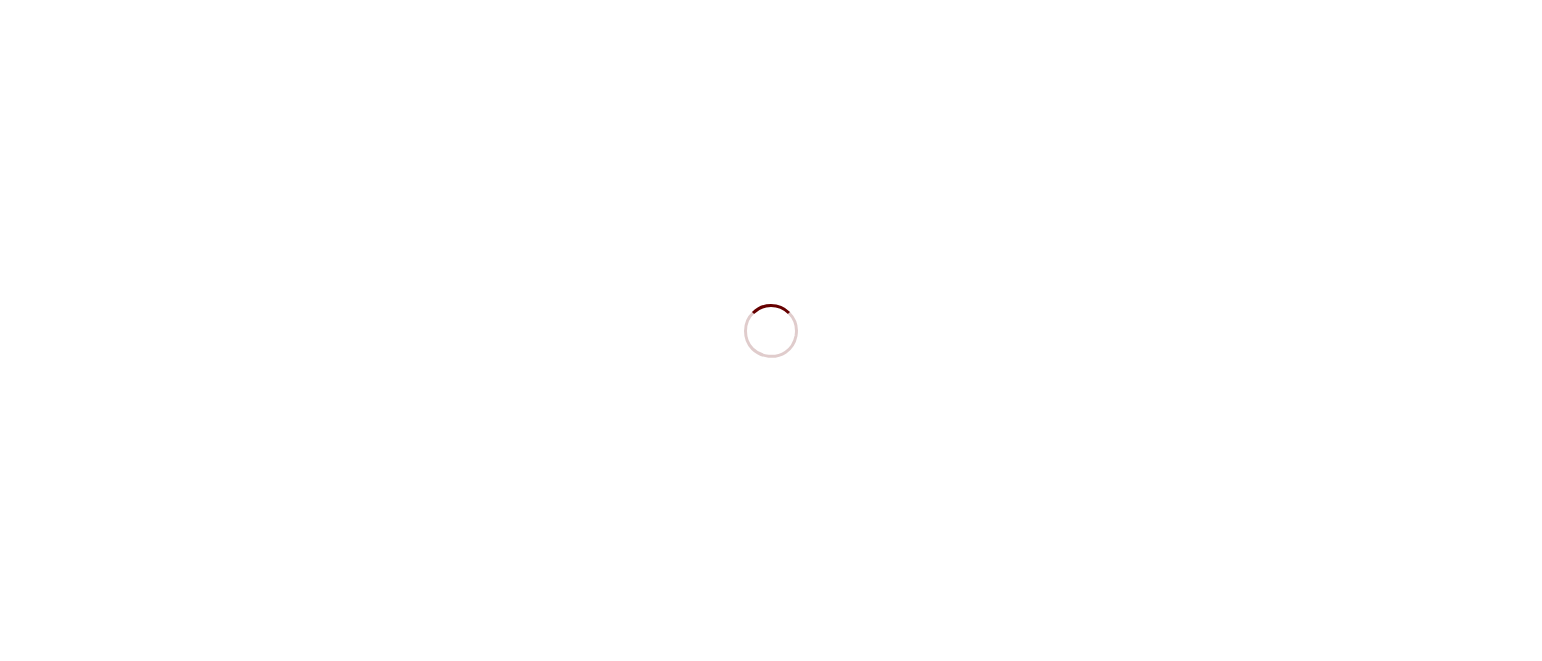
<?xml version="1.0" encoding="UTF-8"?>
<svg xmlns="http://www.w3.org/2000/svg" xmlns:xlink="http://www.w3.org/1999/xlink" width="1542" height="661">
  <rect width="100%" height="100%" fill="#ffffff" />
  <path d="M 753 313 c 10 -10 26 -10 36 0" fill="none" stroke="#660000" stroke-width="3" />
  <path d="M 789 313 c 6 6 8.5 14.5 7 23 c -6 30 -50.5 25.5 -50.5 -5 c 0 -6.5 2.5 -13.5 7.5 -18" fill="none" stroke="#660000" stroke-opacity="0.2" stroke-width="3" />
</svg>
